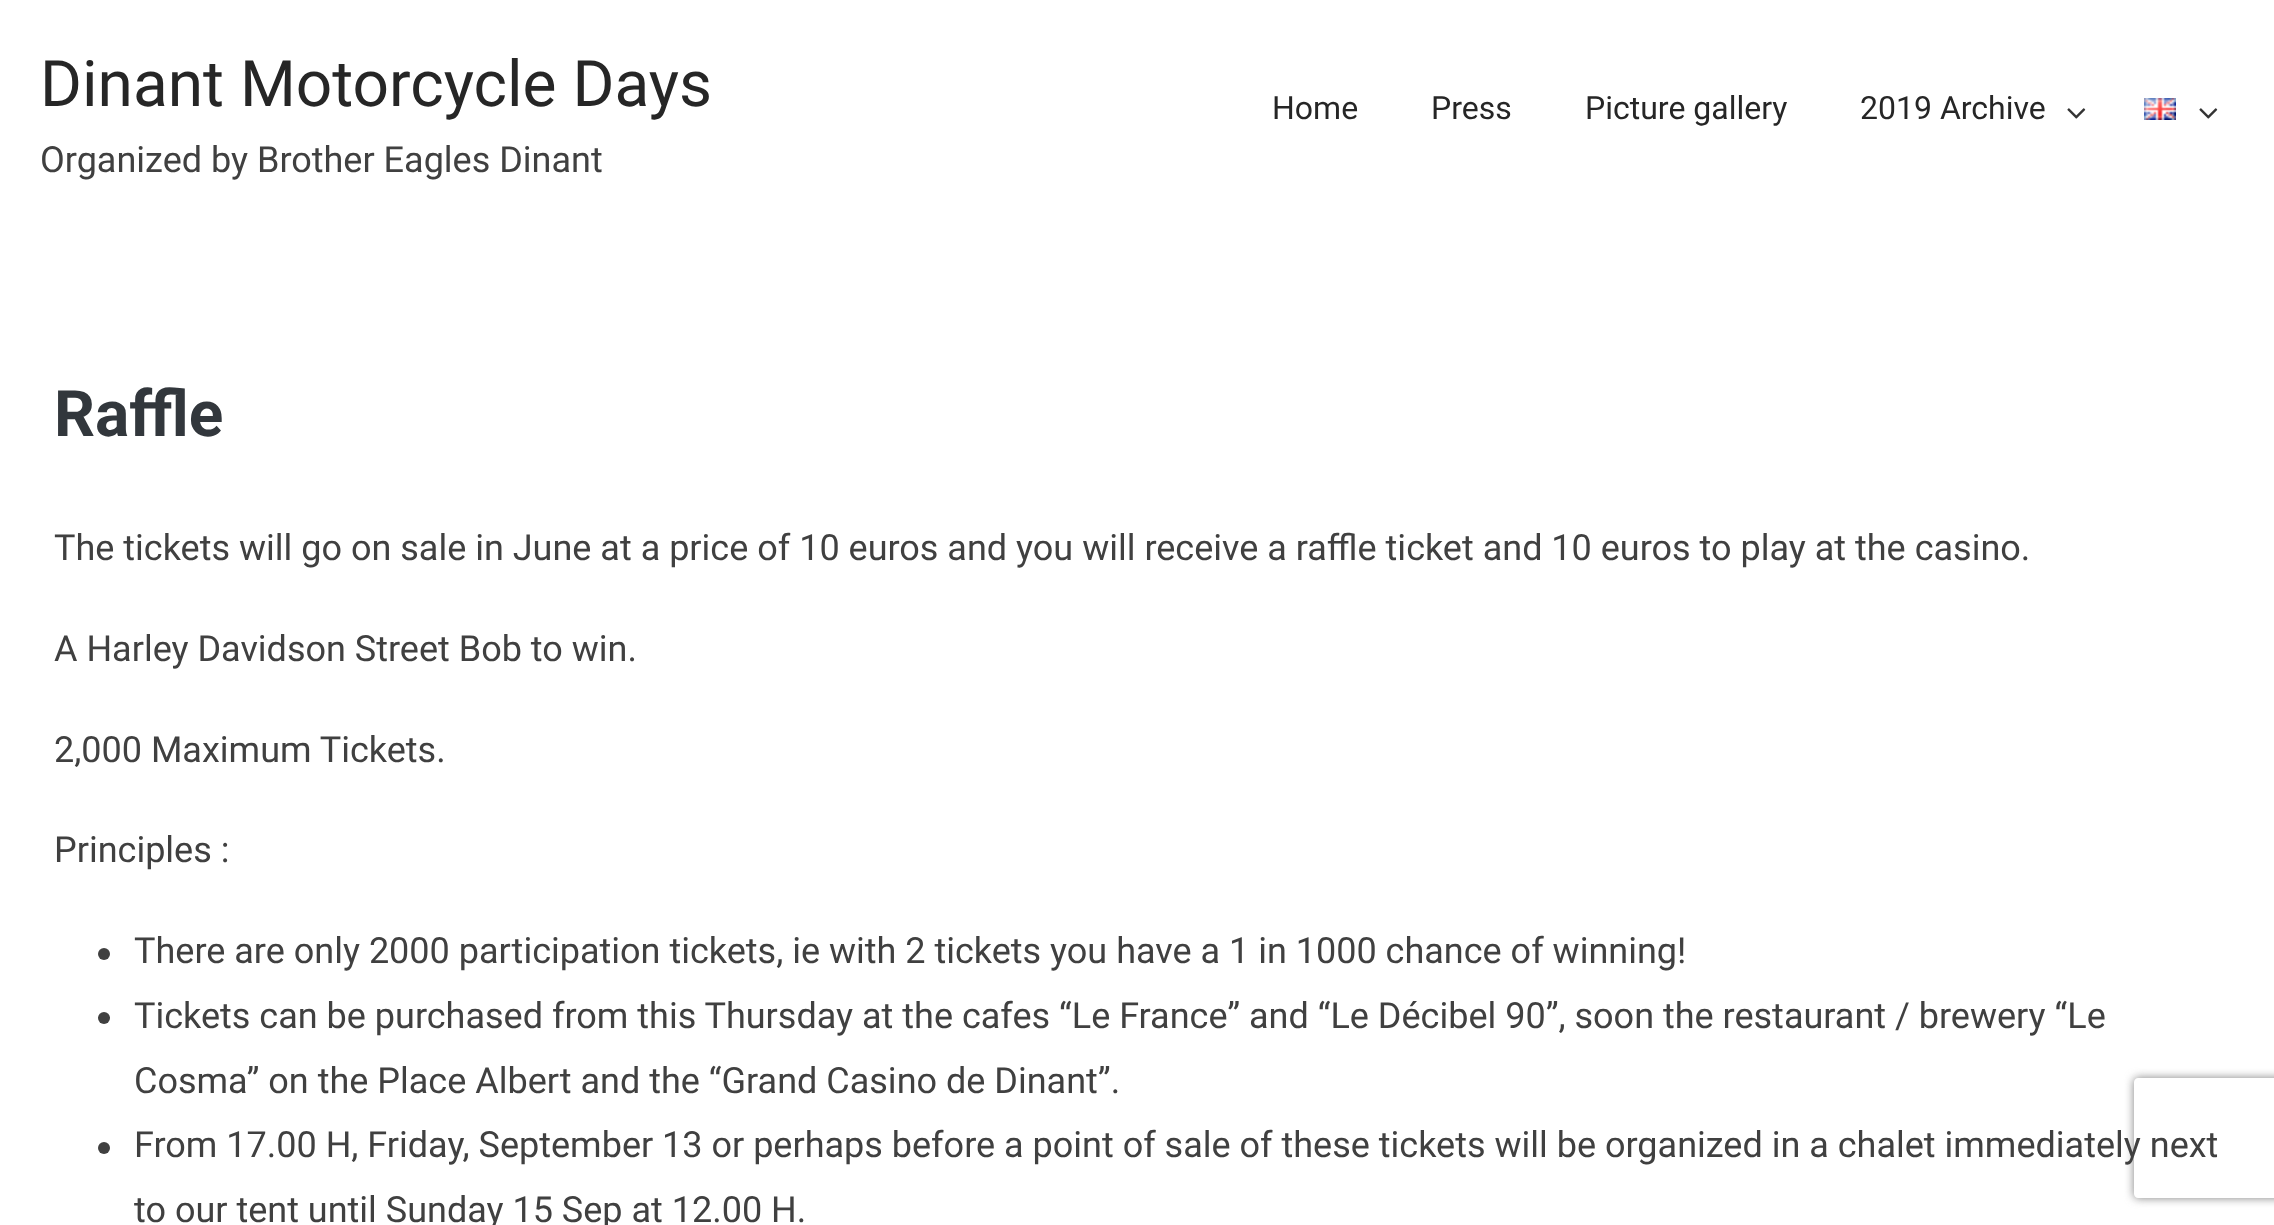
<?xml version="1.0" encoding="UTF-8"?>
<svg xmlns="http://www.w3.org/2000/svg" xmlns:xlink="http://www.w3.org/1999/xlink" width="2274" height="1225">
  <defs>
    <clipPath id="clip1"><path d="M 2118 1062 h 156 v 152 h -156 z m 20 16 h 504 c 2 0 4 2 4 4 v 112 c 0 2 -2 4 -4 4 h -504 c -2 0 -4 -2 -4 -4 v -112 c 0 -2 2 -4 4 -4 z" clip-rule="evenodd" /></clipPath>
  </defs>
  <rect width="100%" height="100%" fill="#ffffff" />
  <image x="2067" y="108" width="19" height="11" xlink:href="image1.png" />
  <image x="2144" y="98" width="32" height="22" xlink:href="image2.png" />
  <image x="2199" y="108" width="19" height="11" xlink:href="image1.png" />
  <circle cx="104" cy="954" r="6" fill="#404040" />
  <circle cx="104" cy="1018" r="6" fill="#404040" />
  <circle cx="104" cy="1148" r="6" fill="#404040" />
  <g clip-path="url(#clip1)">
    <rect x="2134" y="1078" width="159" height="120" rx="4" fill="#808080" filter="blur(5px)" />
  </g>
  <text x="40" y="106" style="font-family: Roboto; font-size: 64px; fill: #262626">Dinant Motorcycle Days</text>
  <text x="40" y="172" style="font-family: Roboto; font-size: 36px; fill: #404040">Organized by Brother Eagles Dinant</text>
  <text x="1272" y="119" style="font-family: Roboto; font-size: 32px; fill: #262626">Home</text>
  <text x="1431" y="119" style="font-family: Roboto; font-size: 32px; fill: #262626">Press</text>
  <text x="1585" y="119" style="font-family: Roboto; font-size: 32px; fill: #262626">Picture gallery</text>
  <text x="1860" y="119" style="font-family: Roboto; font-size: 32px; fill: #262626">2019 Archive</text>
  <text x="54" y="436" style="font-family: Roboto; font-size: 64px; font-weight: bold; fill: #32373c">Raffle</text>
  <text x="54" y="560" style="font-family: Roboto; font-size: 36px; fill: #404040">The tickets will go on sale in June at a price of 10 euros and you will receive a raffle ticket and 10 euros to play at the casino.</text>
  <text x="54" y="661" style="font-family: Roboto; font-size: 36px; fill: #404040">A Harley Davidson Street Bob to win.</text>
  <text x="54" y="762" style="font-family: Roboto; font-size: 36px; fill: #404040">2,000 Maximum Tickets.</text>
  <text x="54" y="862" style="font-family: Roboto; font-size: 36px; fill: #404040">Principles :</text>
  <text x="134" y="963" style="font-family: Roboto; font-size: 36px; fill: #404040">There are only 2000 participation tickets, ie with 2 tickets you have a 1 in 1000 chance of winning!</text>
  <text x="134" y="1028" style="font-family: Roboto; font-size: 36px; fill: #404040">Tickets can be purchased from this Thursday at the cafes “Le France” and “Le Décibel 90”, soon the restaurant / brewery “Le</text>
  <text x="134" y="1093" style="font-family: Roboto; font-size: 36px; fill: #404040">Cosma” on the Place Albert and the “Grand Casino de Dinant”.</text>
  <text x="134" y="1157" style="font-family: Roboto; font-size: 36px; fill: #404040">From 17.00 H, Friday, September 13 or perhaps before a point of sale of these tickets will be organized in a chalet immediately next</text>
  <text x="134" y="1222" style="font-family: Roboto; font-size: 36px; fill: #404040">to our tent until Sunday 15 Sep at 12.00 H.</text>
</svg>
